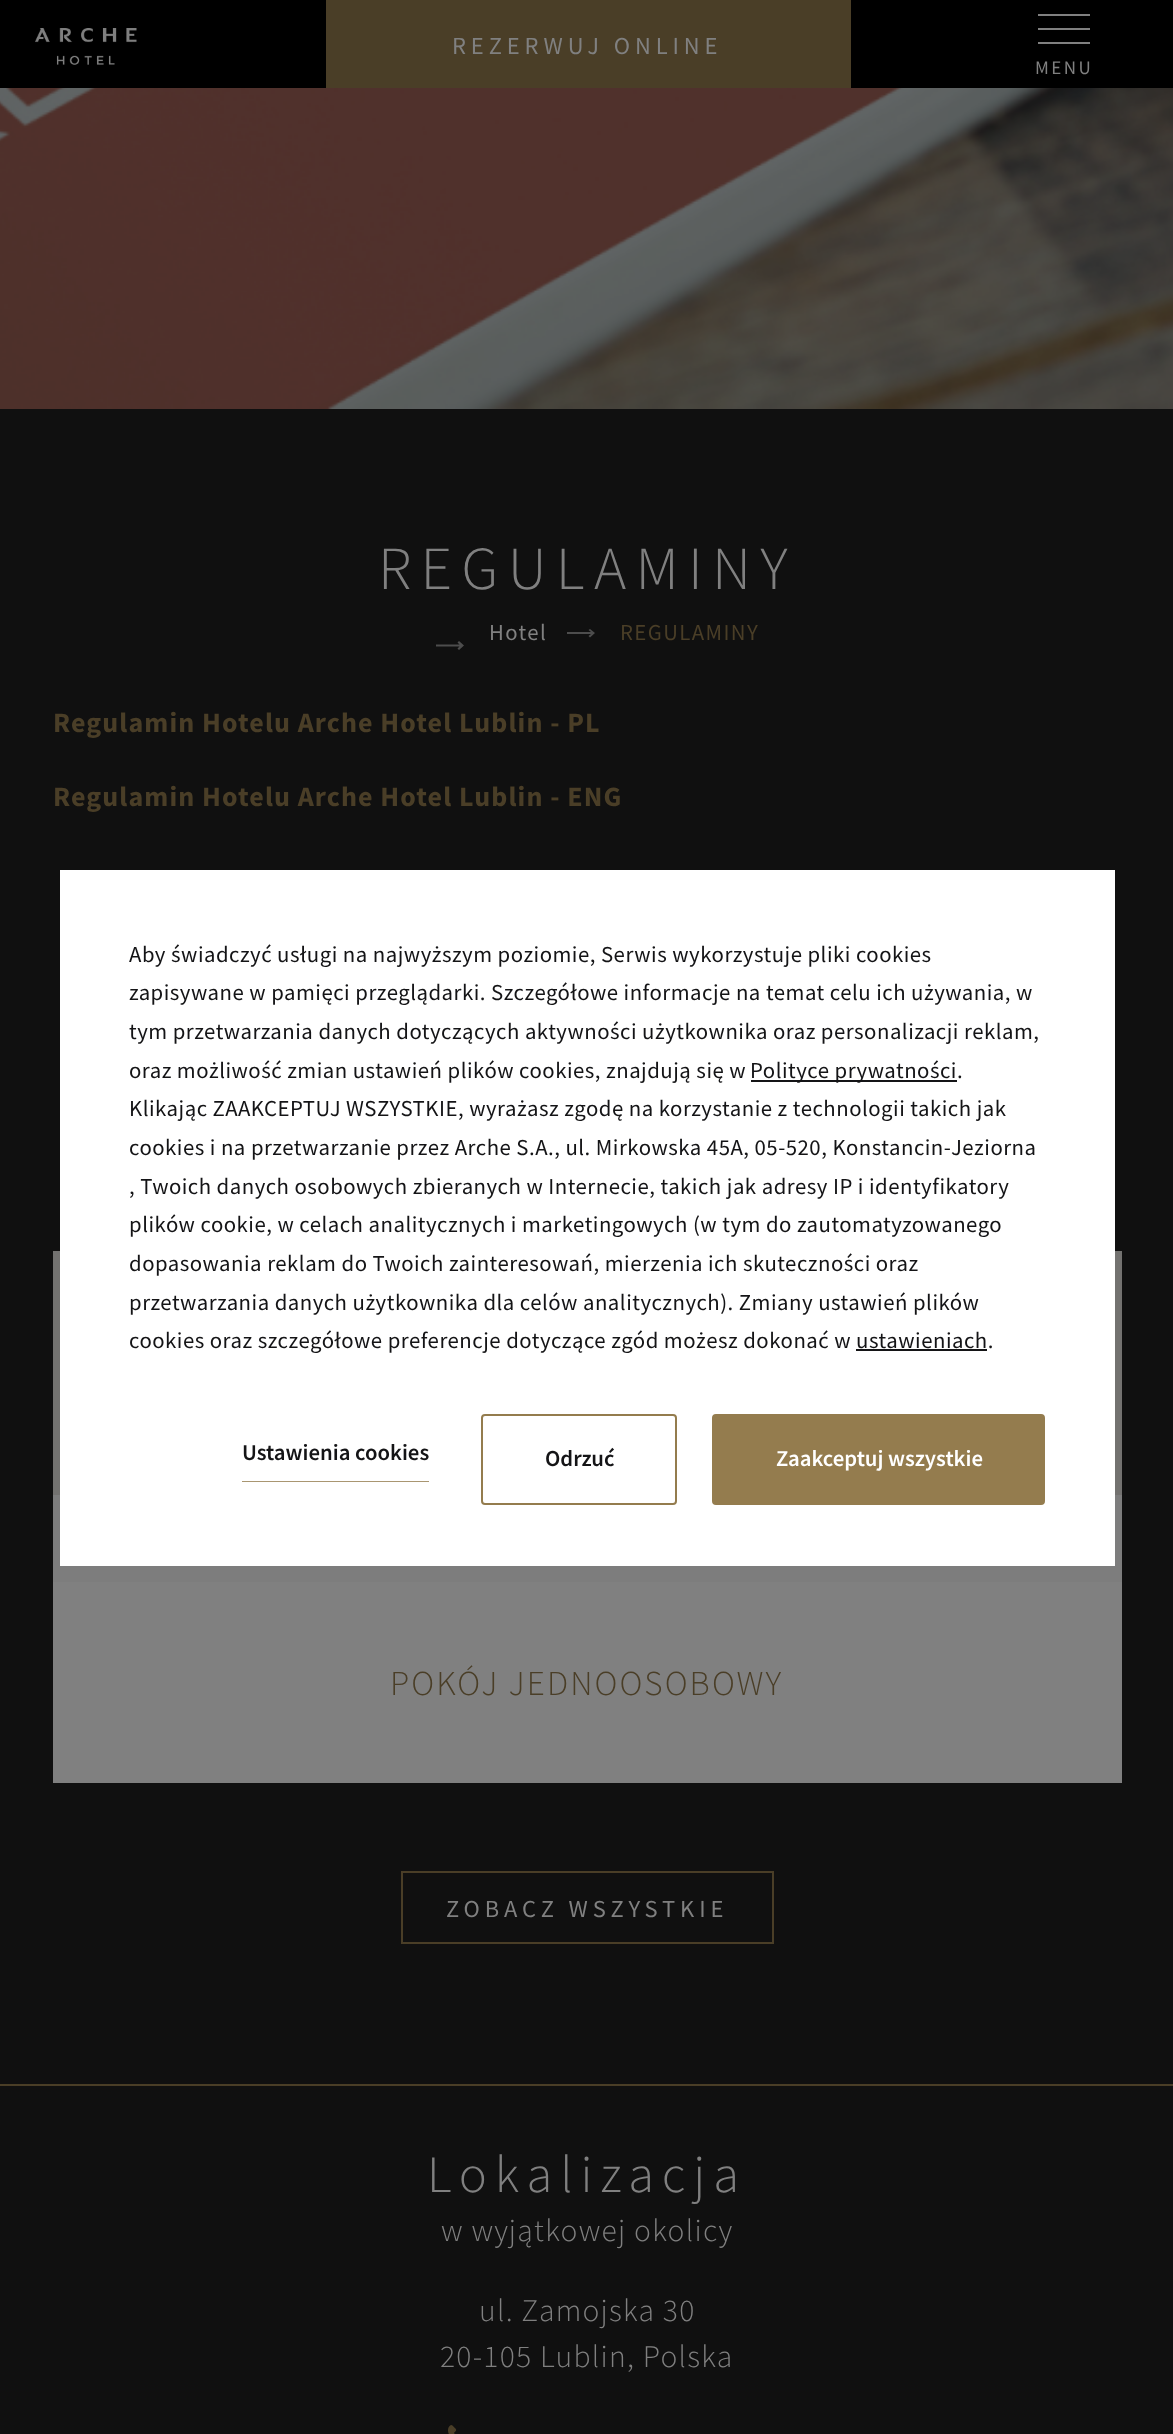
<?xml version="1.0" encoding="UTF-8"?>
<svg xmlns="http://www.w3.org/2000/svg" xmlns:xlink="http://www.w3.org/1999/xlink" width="1173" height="2434">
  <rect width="100%" height="100%" fill="#101010" />
  <rect width="1173" height="88" fill="#000000" />
  <image x="35" y="28" width="102" height="37" xlink:href="image1.png" />
  <rect x="326" width="525" height="88" fill="#4a3e27" />
  <rect x="1038" y="14" width="52" height="2" fill="#808080" />
  <rect x="1038" y="28" width="52" height="2" fill="#808080" />
  <rect x="1038" y="42" width="52" height="2" fill="#808080" />
  <image x="0" y="88" width="1173" height="321" xlink:href="image2.png" />
  <path d="M 590 629 l -1.5 1 l 2.5 2 h -24 v 2 h 24 l -2.5 2 l 1.5 1.5 l 5 -4.5 z" fill="#4d4d4d" />
  <path d="M 459 641 l -1.5 1.5 l 2 2 h -23.5 v 2 h 23.5 l -2 2 l 1.5 1.5 l 5 -4.5 z" fill="#4d4d4d" />
  <rect x="53" y="1251" width="1069" height="244" fill="#737270" />
  <rect x="53" y="1495" width="1069" height="87" fill="#7d7d7d" />
  <rect x="53" y="1582" width="1069" height="201" fill="#808080" />
  <rect x="402" y="1872" width="371" height="71" fill="none" stroke="#4a3e27" stroke-width="2" />
  <rect x="60" y="870" width="1055" height="696" fill="#ffffff" />
  <rect x="751" y="1080" width="206" height="2" fill="#141416" />
  <rect x="856" y="1349" width="131" height="2" fill="#141416" />
  <rect x="242" y="1481" width="187" height="1" fill="#a99671" />
  <rect x="482" y="1415" width="194" height="89" rx="3" fill="none" stroke="#947c4e" stroke-width="2" />
  <rect x="713" y="1415" width="331" height="89" rx="3" fill="none" stroke="#947c4e" stroke-width="2" />
  <rect x="714" y="1416" width="329" height="87" fill="#947c4e" />
  <rect y="2084" width="1173" height="2" fill="#4a3e27" />
  <image x="448" y="2425" width="9" height="9" xlink:href="image3.png" />
  <text x="452" y="54" style="font-family: Source Sans Pro; font-size: 24.5px; letter-spacing: 4.9px; fill: #808080">REZERWUJ ONLINE</text>
  <text x="1035" y="74" style="font-family: Source Sans Pro; font-size: 19px; letter-spacing: 2.5px; fill: #808080">MENU</text>
  <text x="378" y="589" style="font-family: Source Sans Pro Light; font-size: 61.25px; font-weight: 300; letter-spacing: 9.25px; fill: #808080">REGULAMINY</text>
  <text x="489" y="640" style="font-family: Source Sans Pro; font-size: 22.75px; letter-spacing: 1.4px; fill: #808080">Hotel</text>
  <text x="620" y="640" style="font-family: Source Sans Pro; font-size: 22.75px; letter-spacing: 1.4px; fill: #4a3e27">REGULAMINY</text>
  <text x="53" y="732" style="font-family: Source Sans Pro; font-size: 28px; font-weight: bold; letter-spacing: 1.1px; fill: #4a3e27">Regulamin Hotelu Arche Hotel Lublin - PL</text>
  <text x="53" y="806" style="font-family: Source Sans Pro; font-size: 28px; font-weight: bold; letter-spacing: 1.1px; fill: #4a3e27">Regulamin Hotelu Arche Hotel Lublin - ENG</text>
  <text x="390" y="1695" style="font-family: Source Sans Pro Light; font-size: 35px; font-weight: 300; letter-spacing: 2.1px; fill: #4a3e27">POKÓJ JEDNOOSOBOWY</text>
  <text x="446" y="1917" style="font-family: Source Sans Pro; font-size: 24.5px; letter-spacing: 4.9px; fill: #808080">ZOBACZ WSZYSTKIE</text>
  <text x="129" y="962" style="font-family: Source Sans Pro; font-size: 22.75px; letter-spacing: 0.5px; fill: #141416">Aby świadczyć usługi na najwyższym poziomie, Serwis wykorzystuje pliki cookies</text>
  <text x="129" y="1000" style="font-family: Source Sans Pro; font-size: 22.75px; letter-spacing: 0.5px; fill: #141416">zapisywane w pamięci przeglądarki. Szczegółowe informacje na temat celu ich używania, w</text>
  <text x="129" y="1039" style="font-family: Source Sans Pro; font-size: 22.75px; letter-spacing: 0.5px; fill: #141416">tym przetwarzania danych dotyczących aktywności użytkownika oraz personalizacji reklam,</text>
  <text x="129" y="1078" style="font-family: Source Sans Pro; font-size: 22.75px; letter-spacing: 0.5px; fill: #141416">oraz możliwość zmian ustawień plików cookies, znajdują się w</text>
  <text x="750" y="1078" style="font-family: Source Sans Pro; font-size: 22.75px; letter-spacing: 0.5px; fill: #141416">Polityce prywatności.</text>
  <text x="129" y="1116" style="font-family: Source Sans Pro; font-size: 22.75px; letter-spacing: 0.5px; fill: #141416">Klikając ZAAKCEPTUJ WSZYSTKIE, wyrażasz zgodę na korzystanie z technologii takich jak</text>
  <text x="129" y="1155" style="font-family: Source Sans Pro; font-size: 22.75px; letter-spacing: 0.5px; fill: #141416">cookies i na przetwarzanie przez Arche S.A., ul. Mirkowska 45A, 05-520, Konstancin-Jeziorna</text>
  <text x="129" y="1194" style="font-family: Source Sans Pro; font-size: 22.75px; letter-spacing: 0.5px; fill: #141416">, Twoich danych osobowych zbieranych w Internecie, takich jak adresy IP i identyfikatory</text>
  <text x="129" y="1232" style="font-family: Source Sans Pro; font-size: 22.75px; letter-spacing: 0.5px; fill: #141416">plików cookie, w celach analitycznych i marketingowych (w tym do zautomatyzowanego</text>
  <text x="129" y="1271" style="font-family: Source Sans Pro; font-size: 22.75px; letter-spacing: 0.5px; fill: #141416">dopasowania reklam do Twoich zainteresowań, mierzenia ich skuteczności oraz</text>
  <text x="129" y="1310" style="font-family: Source Sans Pro; font-size: 22.75px; letter-spacing: 0.5px; fill: #141416">przetwarzania danych użytkownika dla celów analitycznych). Zmiany ustawień plików</text>
  <text x="129" y="1348" style="font-family: Source Sans Pro; font-size: 22.75px; letter-spacing: 0.5px; fill: #141416">cookies oraz szczegółowe preferencje dotyczące zgód możesz dokonać w ustawieniach.</text>
  <text x="242" y="1460" style="font-family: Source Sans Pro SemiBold; font-size: 22.75px; font-weight: 600; fill: #141416">Ustawienia cookies</text>
  <text x="545" y="1466" style="font-family: Source Sans Pro SemiBold; font-size: 22.75px; font-weight: 600; fill: #141416">Odrzuć</text>
  <text x="776" y="1466" style="font-family: Source Sans Pro SemiBold; font-size: 22.75px; font-weight: 600; fill: #ffffff">Zaakceptuj wszystkie</text>
  <text x="427" y="2192" style="font-family: Source Sans Pro Light; font-size: 52.5px; font-weight: 300; letter-spacing: 7.9px; fill: #808080">Lokalizacja</text>
  <text x="441" y="2241" style="font-family: Source Sans Pro Light; font-size: 31.5px; font-weight: 300; letter-spacing: 1.25px; fill: #808080">w wyjątkowej okolicy</text>
  <text x="479" y="2321" style="font-family: Source Sans Pro Light; font-size: 31.5px; font-weight: 300; letter-spacing: 1.25px; fill: #808080">ul. Zamojska 30</text>
  <text x="440" y="2367" style="font-family: Source Sans Pro Light; font-size: 31.5px; font-weight: 300; letter-spacing: 1.25px; fill: #808080">20-105 Lublin, Polska</text>
</svg>
